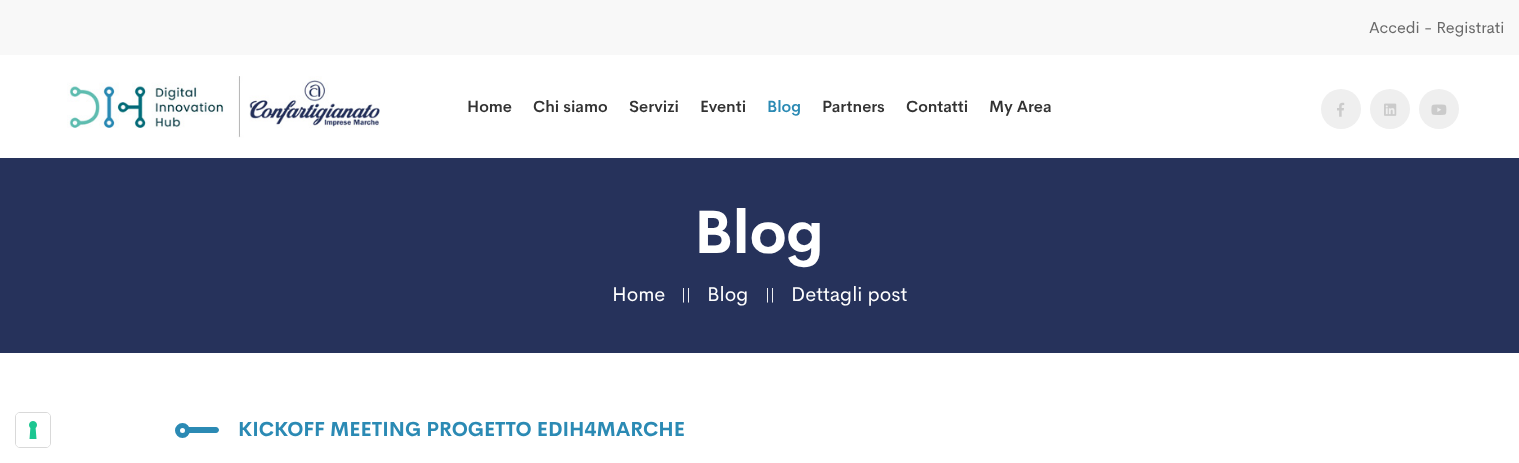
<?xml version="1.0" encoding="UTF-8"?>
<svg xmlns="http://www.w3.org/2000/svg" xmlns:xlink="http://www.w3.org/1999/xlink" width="1519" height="463">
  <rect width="100%" height="100%" fill="#ffffff" />
  <rect width="1519" height="55" fill="#f8f8f8" />
  <image x="67" y="76" width="313" height="62" xlink:href="image1.png" />
  <circle cx="1341" cy="109" r="20" fill="#efefef" />
  <image x="1337" y="102" width="8" height="15" xlink:href="image2.png" />
  <circle cx="1390" cy="109" r="20" fill="#efefef" />
  <image x="1384" y="103" width="13" height="13" xlink:href="image3.png" />
  <circle cx="1439" cy="109" r="20" fill="#efefef" />
  <image x="1431" y="104" width="16" height="11" xlink:href="image4.png" />
  <rect x="15.5" y="412.5" width="35" height="35" rx="4.5" fill="none" stroke="#d9d9d9" />
  <rect x="16" y="413" width="34" height="34" rx="4" fill="#ffffff" />
  <image x="29" y="421" width="8" height="18" xlink:href="image5.png" />
  <rect y="158" width="1519" height="195" fill="#26325b" />
  <circle cx="182.5" cy="430.5" r="5" fill="none" stroke="#2b8ab4" stroke-width="5" />
  <path d="M 189 427 h 27 c 1.5 0 3 1.5 3 3 c 0 1.5 -1.5 3 -3 3 h -27 z" fill="#2b8ab4" />
  <text x="1369" y="33" style="font-family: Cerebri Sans; font-size: 16px; fill: #696969">Accedi - Registrati</text>
  <text x="467" y="112" style="font-family: Cerebri Sans; font-size: 16px; font-weight: 600; fill: #333333">Home</text>
  <text x="533" y="112" style="font-family: Cerebri Sans; font-size: 16px; font-weight: 600; fill: #333333">Chi siamo</text>
  <text x="629" y="112" style="font-family: Cerebri Sans; font-size: 16px; font-weight: 600; fill: #333333">Servizi</text>
  <text x="700" y="112" style="font-family: Cerebri Sans; font-size: 16px; font-weight: 600; fill: #333333">Eventi</text>
  <text x="767" y="112" style="font-family: Cerebri Sans; font-size: 16px; font-weight: 600; fill: #2b8ab4">Blog</text>
  <text x="822" y="112" style="font-family: Cerebri Sans; font-size: 16px; font-weight: 600; fill: #333333">Partners</text>
  <text x="906" y="112" style="font-family: Cerebri Sans; font-size: 16px; font-weight: 600; fill: #333333">Contatti</text>
  <text x="989" y="112" style="font-family: Cerebri Sans; font-size: 16px; font-weight: 600; fill: #333333">My Area</text>
  <text x="694" y="253" style="font-family: Cerebri Sans; font-size: 60px; font-weight: bold; fill: #ffffff">Blog</text>
  <text x="612" y="301" style="font-family: Cerebri Sans; font-size: 20px; fill: #ffffff">Home</text>
  <text x="681" y="300" style="font-family: Cerebri Sans; font-size: 16px; fill: #ffffff">||</text>
  <text x="707" y="301" style="font-family: Cerebri Sans; font-size: 20px; fill: #ffffff">Blog</text>
  <text x="765" y="300" style="font-family: Cerebri Sans; font-size: 16px; fill: #ffffff">||</text>
  <text x="791" y="301" style="font-family: Cerebri Sans; font-size: 20px; fill: #ffffff">Dettagli post</text>
  <text x="238" y="436" style="font-family: Cerebri Sans; font-size: 20px; font-weight: bold; fill: #2b8ab4">KICKOFF MEETING PROGETTO EDIH4MARCHE</text>
</svg>
